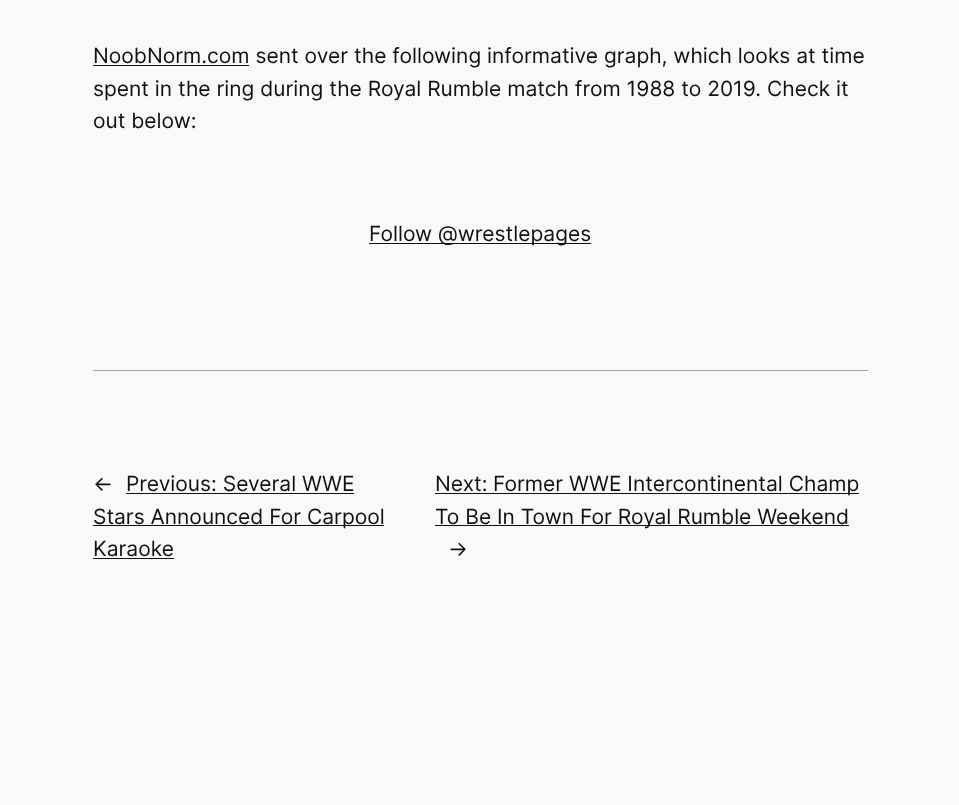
<?xml version="1.0" encoding="UTF-8"?>
<svg xmlns="http://www.w3.org/2000/svg" xmlns:xlink="http://www.w3.org/1999/xlink" width="959" height="805">
  <rect width="100%" height="100%" fill="#f9f9f9" />
  <rect x="93" y="65" width="156" height="1" fill="#111111" />
  <rect x="369" y="243" width="222" height="1" fill="#111111" />
  <rect x="93" y="370" width="775" height="1" fill="#a4a4a4" />
  <rect x="126" y="493" width="228" height="1" fill="#111111" />
  <rect x="93" y="525" width="291" height="1" fill="#111111" />
  <rect x="93" y="558" width="81" height="1" fill="#111111" />
  <rect x="435" y="493" width="424" height="1" fill="#111111" />
  <rect x="435" y="525" width="414" height="1" fill="#111111" />
  <text x="93" y="63" style="font-family: Inter; font-size: 21px; fill: #111111">NoobNorm.com sent over the following informative graph, which looks at time</text>
  <text x="93" y="96" style="font-family: Inter; font-size: 21px; fill: #111111">spent in the ring during the Royal Rumble match from 1988 to 2019. Check it</text>
  <text x="93" y="128" style="font-family: Inter; font-size: 21px; fill: #111111">out below:</text>
  <text x="369" y="241" style="font-family: Inter; font-size: 21px; fill: #111111">Follow @wrestlepages</text>
  <text x="93" y="491" style="font-family: Inter; font-size: 21px; fill: #111111">←</text>
  <text x="126" y="491" style="font-family: Inter; font-size: 21px; fill: #111111">Previous: Several WWE</text>
  <text x="93" y="524" style="font-family: Inter; font-size: 21px; fill: #111111">Stars Announced For Carpool</text>
  <text x="93" y="556" style="font-family: Inter; font-size: 21px; fill: #111111">Karaoke</text>
  <text x="435" y="491" style="font-family: Inter; font-size: 21px; fill: #111111">Next:</text>
  <text x="493" y="491" style="font-family: Inter; font-size: 21px; fill: #111111">Former WWE Intercontinental Champ</text>
  <text x="435" y="524" style="font-family: Inter; font-size: 21px; fill: #111111">To Be In Town For Royal Rumble Weekend</text>
  <text x="448" y="556" style="font-family: Inter; font-size: 21px; fill: #111111">→</text>
</svg>
